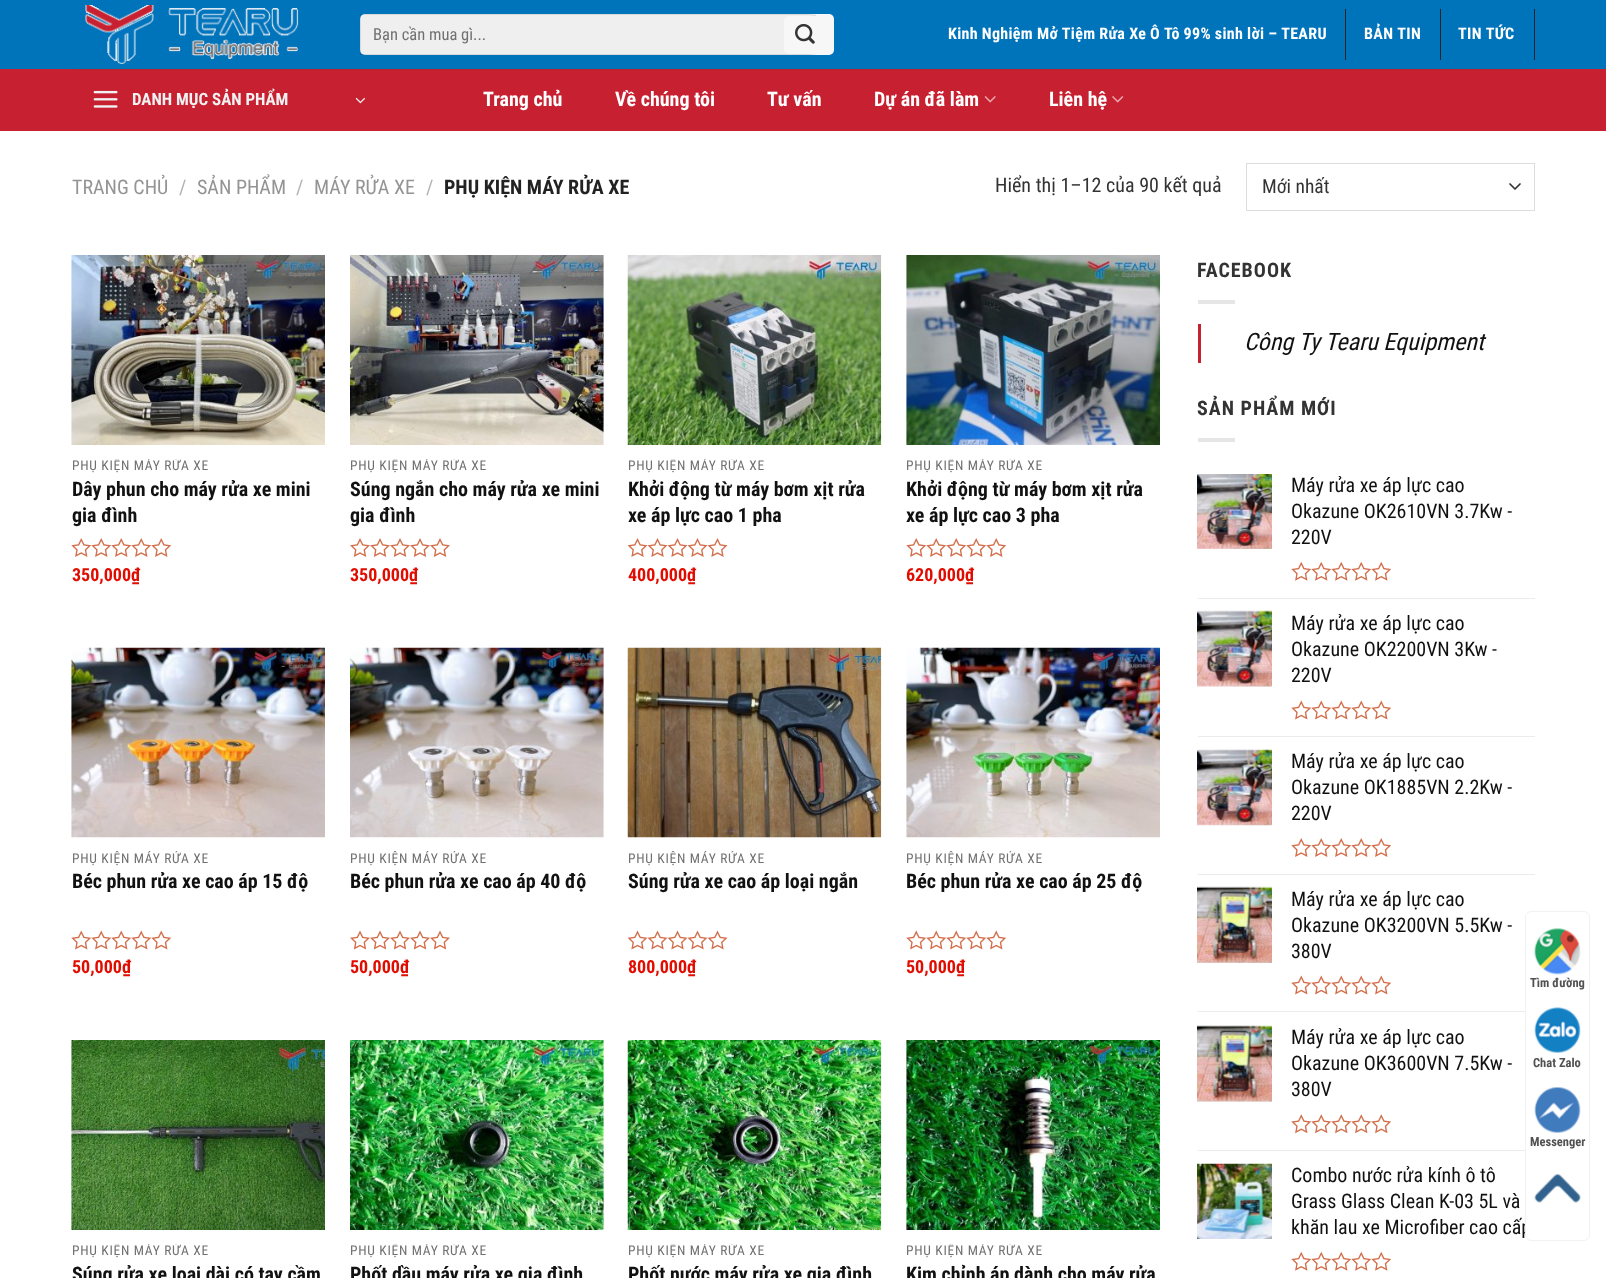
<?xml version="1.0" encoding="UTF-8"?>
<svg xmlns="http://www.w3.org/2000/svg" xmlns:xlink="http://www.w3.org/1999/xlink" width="1606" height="1278">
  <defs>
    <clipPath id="clip1"><rect x="71" y="459" width="254" height="16" /></clipPath>
    <clipPath id="clip2"><rect x="350" y="459" width="254" height="16" /></clipPath>
    <clipPath id="clip3"><rect x="628" y="459" width="253" height="16" /></clipPath>
    <clipPath id="clip4"><rect x="906" y="459" width="254" height="16" /></clipPath>
    <clipPath id="clip5"><rect x="71" y="851" width="254" height="17" /></clipPath>
    <clipPath id="clip6"><rect x="350" y="851" width="254" height="17" /></clipPath>
    <clipPath id="clip7"><rect x="628" y="851" width="253" height="17" /></clipPath>
    <clipPath id="clip8"><rect x="906" y="851" width="254" height="17" /></clipPath>
    <clipPath id="clip9"><rect x="71" y="1244" width="254" height="16" /></clipPath>
    <clipPath id="clip10"><rect x="350" y="1244" width="254" height="16" /></clipPath>
    <clipPath id="clip11"><rect x="628" y="1244" width="253" height="16" /></clipPath>
    <clipPath id="clip12"><rect x="906" y="1244" width="254" height="16" /></clipPath>
  </defs>
  <rect width="100%" height="100%" fill="#ffffff" />
  <rect width="1606" height="69" fill="#0074bb" />
  <image x="85" y="5" width="214" height="59" xlink:href="image1.png" />
  <rect x="360" y="14" width="474" height="41" rx="5" fill="#f7f7f7" />
  <rect x="360" y="14" width="456" height="41" fill="#000000" fill-opacity="0.03" />
  <path d="M 360.5 14.5 h 448 c 11 0 20 9 20 20 c 0 11 -9 20 -20 20 h -448 z" fill="none" stroke="#000000" stroke-opacity="0.09" />
  <rect x="784" y="16" width="46" height="38" rx="5" fill="#f7f7f7" />
  <image x="795" y="23" width="20" height="21" xlink:href="image2.png" />
  <rect x="1345" y="9" width="1" height="51" fill="#232323" />
  <rect x="1440" y="9" width="1" height="51" fill="#232323" />
  <rect x="1534" y="9" width="1" height="51" fill="#232323" />
  <rect y="69" width="1606" height="62" fill="#c72030" />
  <rect x="73" y="69" width="1462" height="1" fill="#b82230" />
  <image x="93" y="90" width="25" height="18" xlink:href="image3.png" />
  <image x="355" y="97" width="11" height="7" xlink:href="image4.png" />
  <image x="984" y="96" width="12" height="7" xlink:href="image5.png" />
  <image x="1112" y="96" width="12" height="7" xlink:href="image6.png" />
  <path d="M 1510 184 l 5 5 l 5 -5" fill="none" stroke="#333333" stroke-width="1.7" stroke-linecap="round" stroke-linejoin="round" />
  <rect x="1246.5" y="163.5" width="288" height="47" fill="none" stroke="#dddddd" />
  <image x="71" y="255" width="254" height="190" xlink:href="image7.png" />
  <image x="71" y="538" width="101" height="19" xlink:href="image8.png" />
  <image x="350" y="255" width="254" height="190" xlink:href="image9.png" />
  <image x="350" y="538" width="100" height="19" xlink:href="image10.png" />
  <image x="627" y="255" width="255" height="190" xlink:href="image11.png" />
  <image x="628" y="538" width="100" height="19" xlink:href="image12.png" />
  <image x="906" y="255" width="254" height="190" xlink:href="image13.png" />
  <image x="906" y="538" width="101" height="19" xlink:href="image8.png" />
  <image x="71" y="647" width="254" height="191" xlink:href="image14.png" />
  <image x="71" y="930" width="101" height="20" xlink:href="image15.png" />
  <image x="350" y="647" width="254" height="191" xlink:href="image16.png" />
  <image x="350" y="930" width="100" height="20" xlink:href="image17.png" />
  <image x="627" y="647" width="255" height="191" xlink:href="image18.png" />
  <image x="628" y="930" width="100" height="20" xlink:href="image19.png" />
  <image x="906" y="647" width="254" height="191" xlink:href="image20.png" />
  <image x="906" y="930" width="101" height="20" xlink:href="image15.png" />
  <image x="71" y="1040" width="254" height="190" xlink:href="image21.png" />
  <image x="350" y="1040" width="254" height="190" xlink:href="image22.png" />
  <image x="627" y="1040" width="255" height="190" xlink:href="image23.png" />
  <image x="906" y="1040" width="254" height="190" xlink:href="image24.png" />
  <rect x="1198" y="300" width="37" height="4" fill="#e6e6e6" />
  <rect x="1198" y="324" width="3" height="39" fill="#c72030" />
  <rect x="1198" y="438" width="37" height="4" fill="#e6e6e6" />
  <image x="1197" y="474" width="75" height="75" xlink:href="image25.png" />
  <image x="1291" y="561" width="100" height="20" xlink:href="image26.png" />
  <rect x="1198" y="598" width="337" height="1" fill="#ececec" />
  <image x="1197" y="610" width="75" height="77" xlink:href="image27.png" />
  <image x="1291" y="700" width="100" height="20" xlink:href="image28.png" />
  <rect x="1198" y="736" width="337" height="1" fill="#ececec" />
  <image x="1197" y="749" width="75" height="77" xlink:href="image29.png" />
  <image x="1291" y="838" width="100" height="19" xlink:href="image30.png" />
  <rect x="1198" y="874" width="337" height="1" fill="#ececec" />
  <image x="1197" y="886" width="75" height="77" xlink:href="image31.png" />
  <image x="1291" y="975" width="100" height="20" xlink:href="image28.png" />
  <rect x="1198" y="1011" width="327" height="1" fill="#ececec" />
  <image x="1197" y="1025" width="75" height="77" xlink:href="image32.png" />
  <image x="1291" y="1114" width="100" height="20" xlink:href="image33.png" />
  <rect x="1198" y="1150" width="327" height="1" fill="#ececec" />
  <image x="1197" y="1163" width="75" height="76" xlink:href="image34.png" />
  <image x="1291" y="1251" width="100" height="20" xlink:href="image26.png" />
  <text x="373" y="40" style="font-family: Roboto Condensed; font-size: 16.5px; fill: #707070">Bạn cần mua gì...</text>
  <text x="948" y="39" word-spacing="-0.1" style="font-family: Roboto Condensed; font-size: 16px; font-weight: bold; letter-spacing: 0.32px; fill: #ffffff">Kinh Nghiệm Mở Tiệm Rửa Xe Ô Tô 99% sinh lời – TEARU</text>
  <text x="1364" y="39" style="font-family: Roboto Condensed; font-size: 16px; font-weight: bold; letter-spacing: 0.32px; fill: #ffffff">BẢN TIN</text>
  <text x="1458" y="39" style="font-family: Roboto Condensed; font-size: 16px; font-weight: bold; letter-spacing: 0.32px; fill: #ffffff">TIN TỨC</text>
  <text x="132" y="105" style="font-family: Roboto Condensed; font-size: 16.9px; font-weight: bold; fill: #f1f1f1">DANH MỤC SẢN PHẨM</text>
  <text x="483" y="106" style="font-family: Roboto Condensed; font-size: 20px; font-weight: bold; fill: #ffffff">Trang chủ</text>
  <text x="615" y="106" style="font-family: Roboto Condensed; font-size: 20px; font-weight: bold; fill: #ffffff">Về chúng tôi</text>
  <text x="767" y="106" style="font-family: Roboto Condensed; font-size: 20px; font-weight: bold; fill: #ffffff">Tư vấn</text>
  <text x="874" y="106" style="font-family: Roboto Condensed; font-size: 20px; font-weight: bold; fill: #ffffff">Dự án đã làm</text>
  <text x="1049" y="106" style="font-family: Roboto Condensed; font-size: 20px; font-weight: bold; fill: #ffffff">Liên hệ</text>
  <text x="72" y="194" style="font-family: Roboto Condensed; font-size: 20px; fill: #949494">TRANG CHỦ</text>
  <text x="179" y="194" style="font-family: Roboto Condensed; font-size: 20px; fill: #b2b2b2">/</text>
  <text x="197" y="194" style="font-family: Roboto Condensed; font-size: 20px; fill: #949494">SẢN PHẨM</text>
  <text x="296" y="194" style="font-family: Roboto Condensed; font-size: 20px; fill: #b2b2b2">/</text>
  <text x="314" y="194" style="font-family: Roboto Condensed; font-size: 20px; fill: #949494">MÁY RỬA XE</text>
  <text x="426" y="194" style="font-family: Roboto Condensed; font-size: 20px; fill: #b2b2b2">/</text>
  <text x="444" y="194" style="font-family: Roboto Condensed; font-size: 20px; font-weight: bold; fill: #222222">PHỤ KIỆN MÁY RỬA XE</text>
  <text x="995" y="192" style="font-family: Roboto Condensed; font-size: 20px; fill: #333333">Hiển thị 1–12 của 90 kết quả</text>
  <text x="1262" y="193" style="font-family: Roboto Condensed; font-size: 19.5px; fill: #333333">Mới nhất</text>
  <g clip-path="url(#clip1)">
    <text x="72" y="470" style="font-family: Roboto Condensed; font-size: 13.5px; letter-spacing: 0.7px; fill: #707070">PHỤ KIỆN MÁY RỬA XE</text>
  </g>
  <text x="72" y="496" style="font-family: Roboto Condensed; font-size: 20px; font-weight: bold; fill: #111111">Dây phun cho máy rửa xe mini</text>
  <text x="72" y="522" style="font-family: Roboto Condensed; font-size: 20px; font-weight: bold; fill: #111111">gia đình</text>
  <text x="72" y="581" style="font-family: Roboto Condensed; font-size: 18px; font-weight: bold; fill: #e10c00">350,000₫</text>
  <g clip-path="url(#clip2)">
    <text x="350" y="470" style="font-family: Roboto Condensed; font-size: 13.5px; letter-spacing: 0.7px; fill: #707070">PHỤ KIỆN MÁY RỬA XE</text>
  </g>
  <text x="350" y="496" style="font-family: Roboto Condensed; font-size: 20px; font-weight: bold; fill: #111111">Súng ngắn cho máy rửa xe mini</text>
  <text x="350" y="522" style="font-family: Roboto Condensed; font-size: 20px; font-weight: bold; fill: #111111">gia đình</text>
  <text x="350" y="581" style="font-family: Roboto Condensed; font-size: 18px; font-weight: bold; fill: #e10c00">350,000₫</text>
  <g clip-path="url(#clip3)">
    <text x="628" y="470" style="font-family: Roboto Condensed; font-size: 13.5px; letter-spacing: 0.7px; fill: #707070">PHỤ KIỆN MÁY RỬA XE</text>
  </g>
  <text x="628" y="496" style="font-family: Roboto Condensed; font-size: 20px; font-weight: bold; fill: #111111">Khởi động từ máy bơm xịt rửa</text>
  <text x="628" y="522" style="font-family: Roboto Condensed; font-size: 20px; font-weight: bold; fill: #111111">xe áp lực cao 1 pha</text>
  <text x="628" y="581" style="font-family: Roboto Condensed; font-size: 18px; font-weight: bold; fill: #e10c00">400,000₫</text>
  <g clip-path="url(#clip4)">
    <text x="906" y="470" style="font-family: Roboto Condensed; font-size: 13.5px; letter-spacing: 0.7px; fill: #707070">PHỤ KIỆN MÁY RỬA XE</text>
  </g>
  <text x="906" y="496" style="font-family: Roboto Condensed; font-size: 20px; font-weight: bold; fill: #111111">Khởi động từ máy bơm xịt rửa</text>
  <text x="906" y="522" style="font-family: Roboto Condensed; font-size: 20px; font-weight: bold; fill: #111111">xe áp lực cao 3 pha</text>
  <text x="906" y="581" style="font-family: Roboto Condensed; font-size: 18px; font-weight: bold; fill: #e10c00">620,000₫</text>
  <g clip-path="url(#clip5)">
    <text x="72" y="863" style="font-family: Roboto Condensed; font-size: 13.5px; letter-spacing: 0.7px; fill: #707070">PHỤ KIỆN MÁY RỬA XE</text>
  </g>
  <text x="72" y="888" style="font-family: Roboto Condensed; font-size: 20px; font-weight: bold; fill: #111111">Béc phun rửa xe cao áp 15 độ</text>
  <text x="72" y="973" style="font-family: Roboto Condensed; font-size: 18px; font-weight: bold; fill: #e10c00">50,000₫</text>
  <g clip-path="url(#clip6)">
    <text x="350" y="863" style="font-family: Roboto Condensed; font-size: 13.5px; letter-spacing: 0.7px; fill: #707070">PHỤ KIỆN MÁY RỬA XE</text>
  </g>
  <text x="350" y="888" style="font-family: Roboto Condensed; font-size: 20px; font-weight: bold; fill: #111111">Béc phun rửa xe cao áp 40 độ</text>
  <text x="350" y="973" style="font-family: Roboto Condensed; font-size: 18px; font-weight: bold; fill: #e10c00">50,000₫</text>
  <g clip-path="url(#clip7)">
    <text x="628" y="863" style="font-family: Roboto Condensed; font-size: 13.5px; letter-spacing: 0.7px; fill: #707070">PHỤ KIỆN MÁY RỬA XE</text>
  </g>
  <text x="628" y="888" style="font-family: Roboto Condensed; font-size: 20px; font-weight: bold; fill: #111111">Súng rửa xe cao áp loại ngắn</text>
  <text x="628" y="973" style="font-family: Roboto Condensed; font-size: 18px; font-weight: bold; fill: #e10c00">800,000₫</text>
  <g clip-path="url(#clip8)">
    <text x="906" y="863" style="font-family: Roboto Condensed; font-size: 13.5px; letter-spacing: 0.7px; fill: #707070">PHỤ KIỆN MÁY RỬA XE</text>
  </g>
  <text x="906" y="888" style="font-family: Roboto Condensed; font-size: 20px; font-weight: bold; fill: #111111">Béc phun rửa xe cao áp 25 độ</text>
  <text x="906" y="973" style="font-family: Roboto Condensed; font-size: 18px; font-weight: bold; fill: #e10c00">50,000₫</text>
  <g clip-path="url(#clip9)">
    <text x="72" y="1255" style="font-family: Roboto Condensed; font-size: 13.5px; letter-spacing: 0.7px; fill: #707070">PHỤ KIỆN MÁY RỬA XE</text>
  </g>
  <text x="72" y="1281" style="font-family: Roboto Condensed; font-size: 20px; font-weight: bold; fill: #111111">Súng rửa xe loại dài có tay cầm</text>
  <g clip-path="url(#clip10)">
    <text x="350" y="1255" style="font-family: Roboto Condensed; font-size: 13.5px; letter-spacing: 0.7px; fill: #707070">PHỤ KIỆN MÁY RỬA XE</text>
  </g>
  <text x="350" y="1281" style="font-family: Roboto Condensed; font-size: 20px; font-weight: bold; fill: #111111">Phốt dầu máy rửa xe gia đình</text>
  <g clip-path="url(#clip11)">
    <text x="628" y="1255" style="font-family: Roboto Condensed; font-size: 13.5px; letter-spacing: 0.7px; fill: #707070">PHỤ KIỆN MÁY RỬA XE</text>
  </g>
  <text x="628" y="1281" style="font-family: Roboto Condensed; font-size: 20px; font-weight: bold; fill: #111111">Phốt nước máy rửa xe gia đình</text>
  <g clip-path="url(#clip12)">
    <text x="906" y="1255" style="font-family: Roboto Condensed; font-size: 13.5px; letter-spacing: 0.7px; fill: #707070">PHỤ KIỆN MÁY RỬA XE</text>
  </g>
  <text x="906" y="1281" style="font-family: Roboto Condensed; font-size: 20px; font-weight: bold; fill: #111111">Kim chỉnh áp dành cho máy rửa</text>
  <text x="1197" y="277" style="font-family: Roboto Condensed; font-size: 20px; font-weight: bold; letter-spacing: 1px; fill: #333333">FACEBOOK</text>
  <text x="1244" y="350" style="font-family: Roboto Condensed; font-size: 24px; font-style: italic; fill: #111111">Công Ty Tearu Equipment</text>
  <text x="1197" y="415" style="font-family: Roboto Condensed; font-size: 20px; font-weight: bold; letter-spacing: 1px; fill: #333333">SẢN PHẨM MỚI</text>
  <text x="1291" y="492" style="font-family: Roboto Condensed; font-size: 20px; fill: #111111">Máy rửa xe áp lực cao</text>
  <text x="1291" y="518" style="font-family: Roboto Condensed; font-size: 20px; fill: #111111">Okazune OK2610VN 3.7Kw -</text>
  <text x="1291" y="544" style="font-family: Roboto Condensed; font-size: 20px; fill: #111111">220V</text>
  <text x="1291" y="630" style="font-family: Roboto Condensed; font-size: 20px; fill: #111111">Máy rửa xe áp lực cao</text>
  <text x="1291" y="656" style="font-family: Roboto Condensed; font-size: 20px; fill: #111111">Okazune OK2200VN 3Kw -</text>
  <text x="1291" y="682" style="font-family: Roboto Condensed; font-size: 20px; fill: #111111">220V</text>
  <text x="1291" y="768" style="font-family: Roboto Condensed; font-size: 20px; fill: #111111">Máy rửa xe áp lực cao</text>
  <text x="1291" y="794" style="font-family: Roboto Condensed; font-size: 20px; fill: #111111">Okazune OK1885VN 2.2Kw -</text>
  <text x="1291" y="820" style="font-family: Roboto Condensed; font-size: 20px; fill: #111111">220V</text>
  <text x="1291" y="906" style="font-family: Roboto Condensed; font-size: 20px; fill: #111111">Máy rửa xe áp lực cao</text>
  <text x="1291" y="932" style="font-family: Roboto Condensed; font-size: 20px; fill: #111111">Okazune OK3200VN 5.5Kw -</text>
  <text x="1291" y="958" style="font-family: Roboto Condensed; font-size: 20px; fill: #111111">380V</text>
  <text x="1291" y="1044" style="font-family: Roboto Condensed; font-size: 20px; fill: #111111">Máy rửa xe áp lực cao</text>
  <text x="1291" y="1070" style="font-family: Roboto Condensed; font-size: 20px; fill: #111111">Okazune OK3600VN 7.5Kw -</text>
  <text x="1291" y="1096" style="font-family: Roboto Condensed; font-size: 20px; fill: #111111">380V</text>
  <text x="1291" y="1182" style="font-family: Roboto Condensed; font-size: 20px; fill: #111111">Combo nước rửa kính ô tô</text>
  <text x="1291" y="1208" style="font-family: Roboto Condensed; font-size: 20px; fill: #111111">Grass Glass Clean K-03 5L và</text>
  <text x="1291" y="1234" style="font-family: Roboto Condensed; font-size: 20px; fill: #111111">khăn lau xe Microfiber cao cấp</text>
  <rect x="1525.5" y="911.5" width="64" height="329" rx="5.5" fill="#ffffff" stroke="#f2f2f2" />
  <image x="1534" y="928" width="47" height="47" xlink:href="image35.png" />
  <text x="1530" y="987" style="font-family: Roboto Condensed; font-size: 12.5px; font-weight: bold; fill: #515151">Tìm đường</text>
  <image x="1534" y="1007" width="47" height="46" xlink:href="image36.png" />
  <text x="1533" y="1067" style="font-family: Roboto Condensed; font-size: 12.5px; font-weight: bold; fill: #515151">Chat Zalo</text>
  <image x="1534" y="1087" width="47" height="46" xlink:href="image37.png" />
  <text x="1530" y="1146" style="font-family: Roboto Condensed; font-size: 12.5px; font-weight: bold; fill: #515151">Messenger</text>
  <image x="1534" y="1174" width="47" height="29" xlink:href="image38.png" />
</svg>
